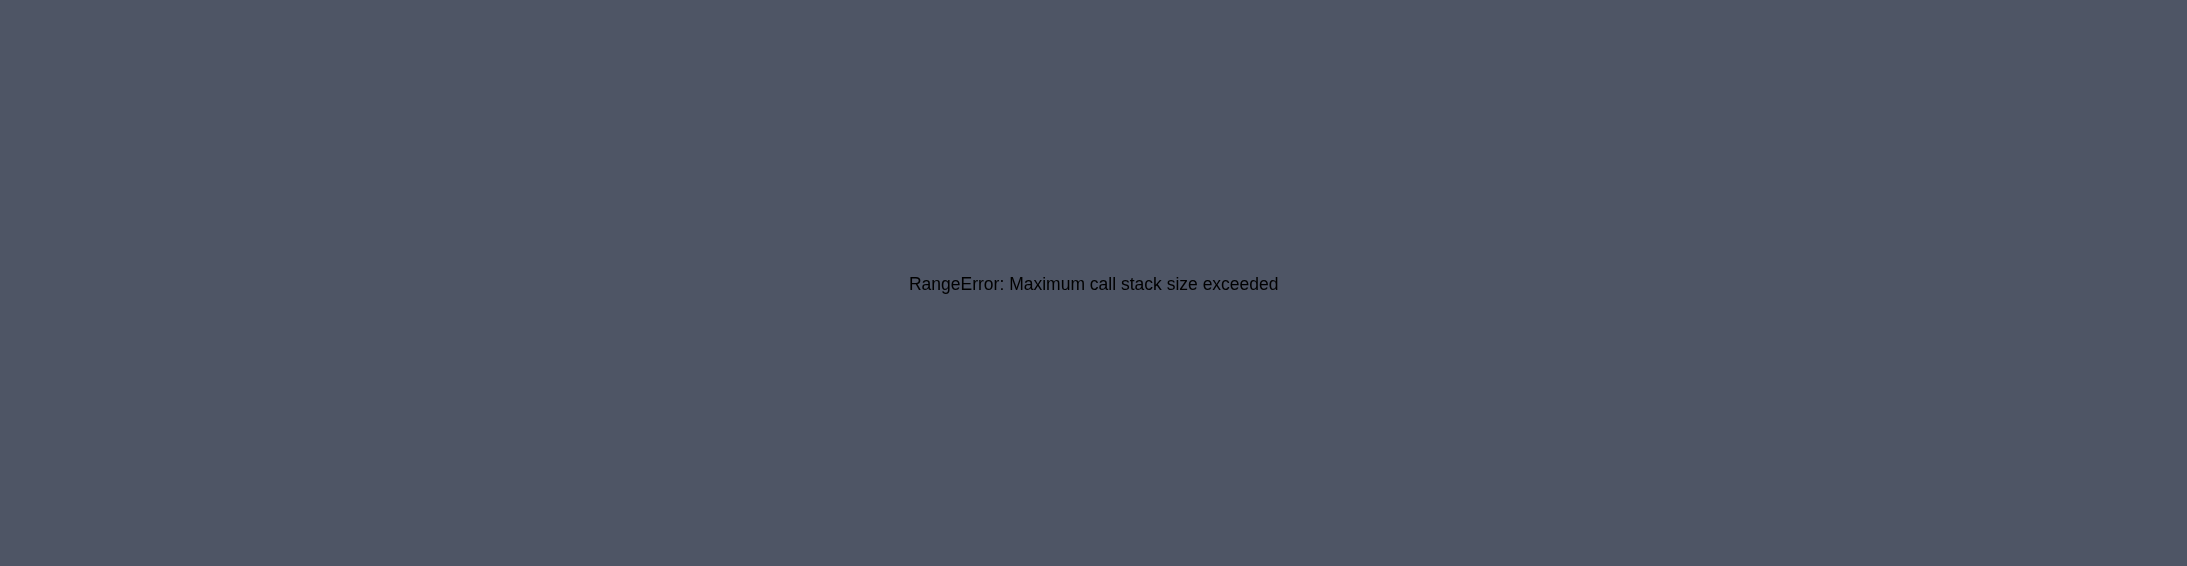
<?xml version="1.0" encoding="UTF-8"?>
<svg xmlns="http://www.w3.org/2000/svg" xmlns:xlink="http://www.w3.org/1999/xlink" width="2187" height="566">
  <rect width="100%" height="100%" fill="#4e5565" />
  <image x="910" y="277" width="368" height="17" xlink:href="image1.png" />
</svg>
